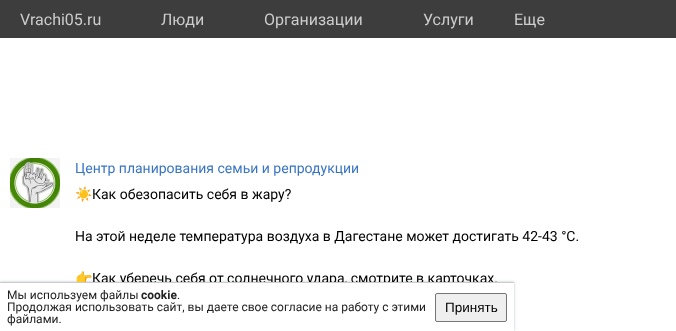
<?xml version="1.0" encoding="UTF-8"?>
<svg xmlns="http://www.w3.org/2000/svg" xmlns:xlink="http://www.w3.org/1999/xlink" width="676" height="331">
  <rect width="100%" height="100%" fill="#ffffff" />
  <rect width="676" height="38" fill="#3d3d3d" />
  <image x="10" y="158" width="50" height="50" xlink:href="image1.png" />
  <rect y="282" width="514" height="49" fill="#223c50" fill-opacity="0.3" filter="blur(1.5px)" />
  <text x="20" y="25" style="font-family: Roboto; font-size: 16px; fill: #cccccc">Vrachi05.ru</text>
  <text x="161" y="25" style="font-family: Roboto; font-size: 16px; fill: #cccccc">Люди</text>
  <text x="264" y="25" style="font-family: Roboto; font-size: 16px; fill: #cccccc">Организации</text>
  <text x="423" y="25" style="font-family: Roboto; font-size: 16px; fill: #cccccc">Услуги</text>
  <text x="514" y="25" style="font-family: Roboto; font-size: 16px; fill: #cccccc">Eще</text>
  <text x="75" y="173" style="font-family: Roboto; font-size: 14px; fill: #3a75c3">Центр планирования семьи и репродукции</text>
  <text x="75" y="199" style="font-family: Noto Color Emoji; font-size: 14px; fill: #000000">☀️</text>
  <text x="92" y="199" style="font-family: Roboto; font-size: 14px; fill: #000000">Как обезопасить себя в жару?</text>
  <text x="75" y="241" style="font-family: Roboto; font-size: 14px; fill: #000000">На этой неделе температура воздуха в Дагестане может достигать 42-43 °С.</text>
  <text x="75" y="283" style="font-family: Noto Color Emoji; font-size: 14px; fill: #000000">👉</text>
  <text x="92" y="283" style="font-family: Roboto; font-size: 14px; fill: #000000">Как уберечь себя от солнечного удара, смотрите в карточках.</text>
  <rect y="283" width="514" height="48" fill="#ffffff" />
  <rect y="282" width="514" height="1" fill="#cccccc" />
  <text x="7" y="299" style="font-family: Roboto; font-size: 12px; fill: #222222">Мы используем файлы</text>
  <text x="141" y="299" style="font-family: Roboto; font-size: 12px; font-weight: bold; fill: #222222">cookie</text>
  <text x="177" y="299" style="font-family: Roboto; font-size: 12px; fill: #222222">.</text>
  <text x="7" y="311" style="font-family: Roboto; font-size: 12px; fill: #222222">Продолжая использовать сайт, вы даете свое согласие на работу с этими</text>
  <text x="7" y="323" style="font-family: Roboto; font-size: 12px; fill: #222222">файлами.</text>
  <rect x="435.5" y="293.5" width="71" height="28" rx="1.5" fill="#efefef" stroke="#767676" />
  <text x="445" y="312" style="font-family: Liberation Sans; font-size: 13.5px; fill: #000000">Принять</text>
</svg>
